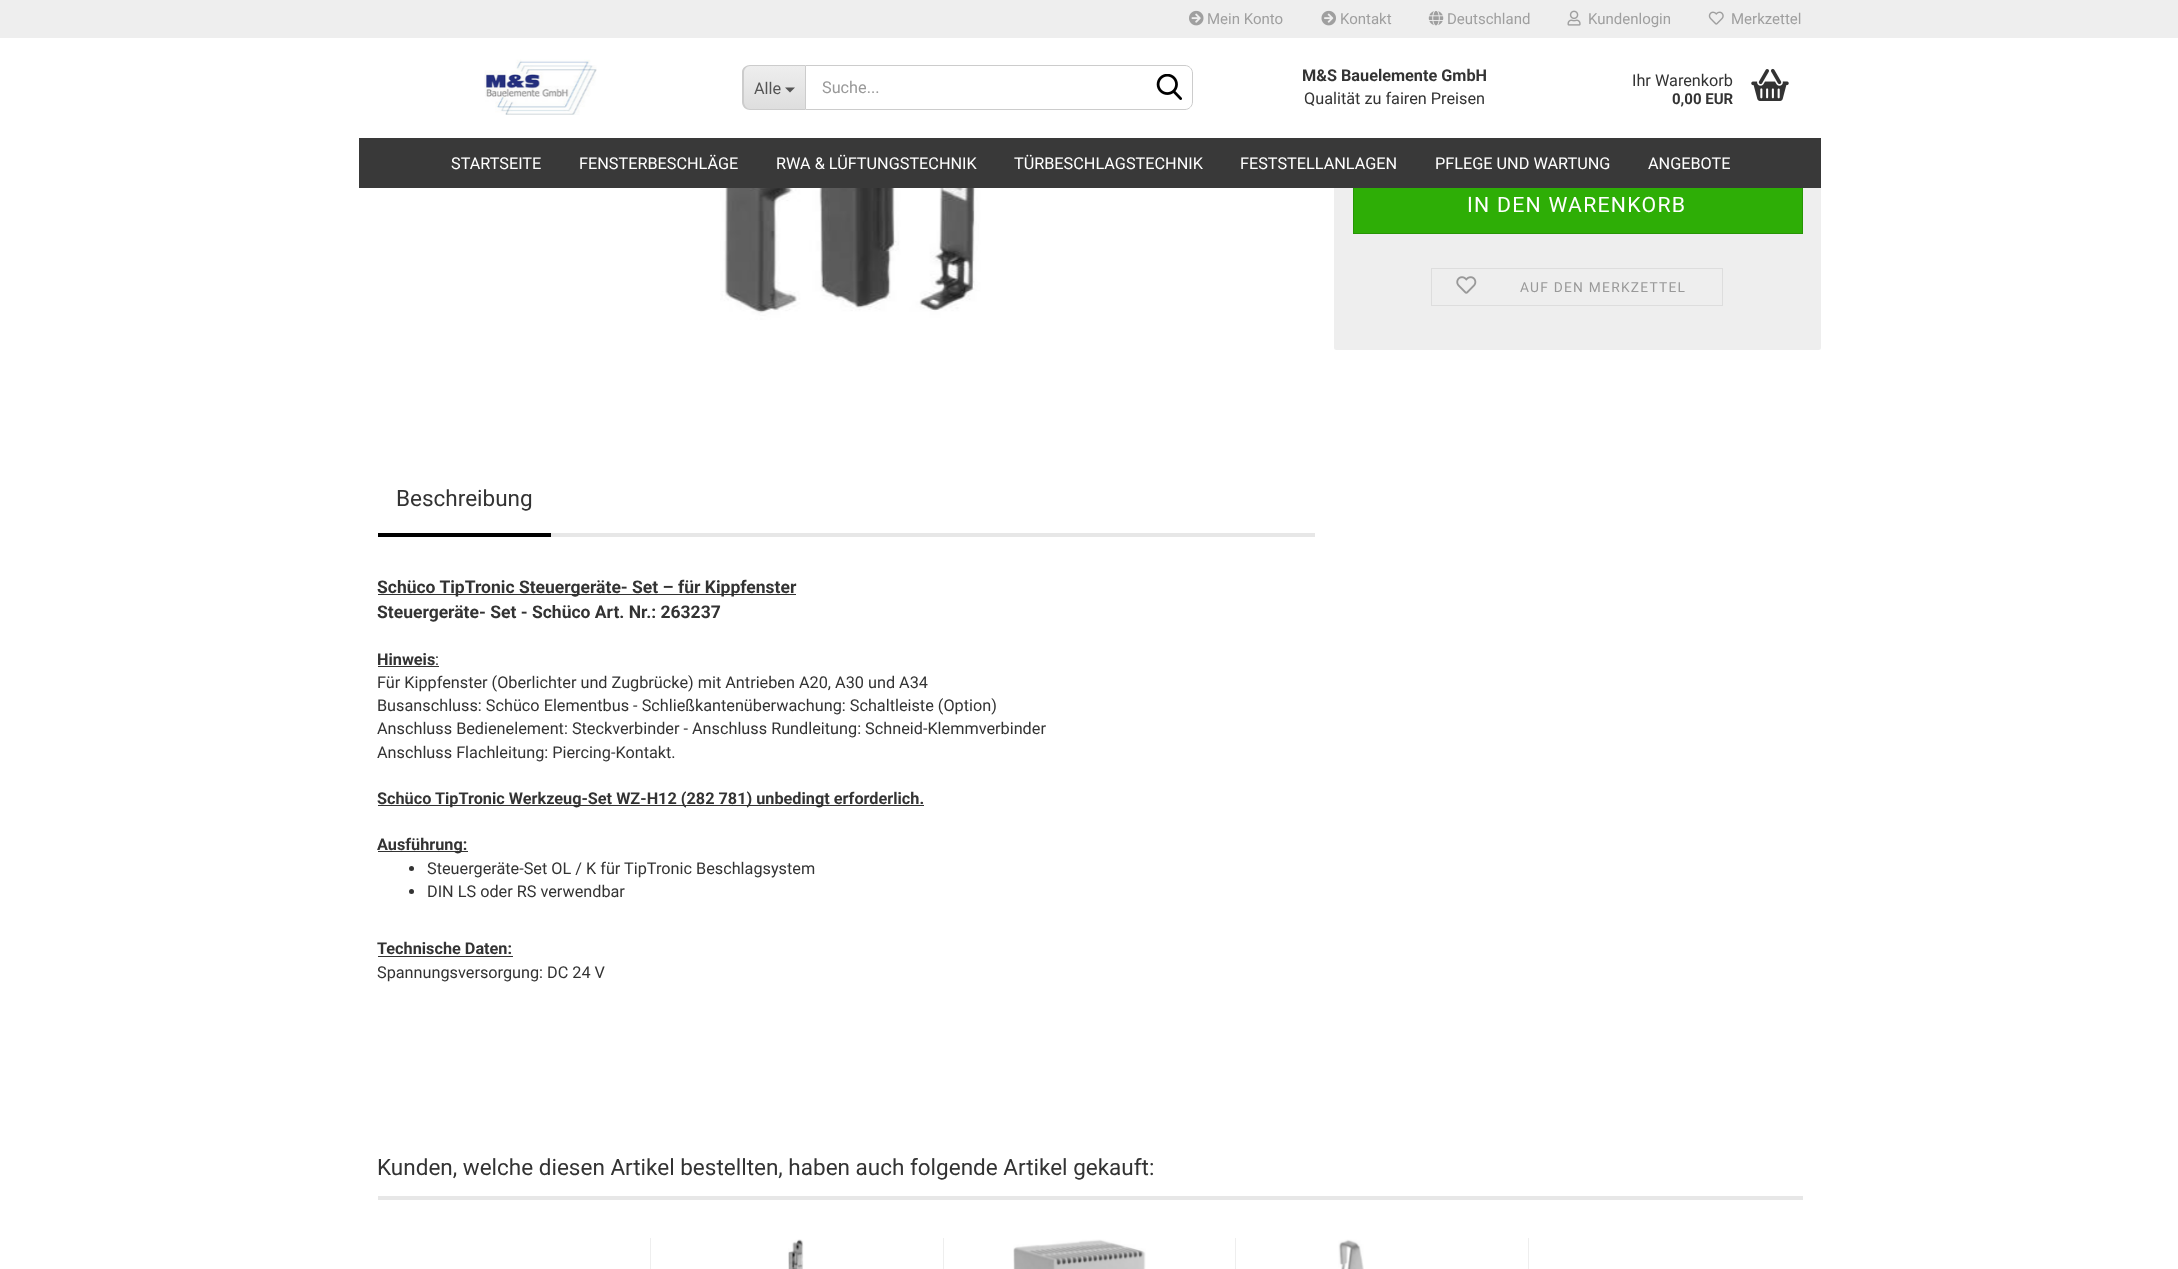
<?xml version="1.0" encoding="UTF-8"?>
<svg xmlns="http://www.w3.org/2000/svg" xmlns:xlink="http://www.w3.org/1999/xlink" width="2178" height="1269">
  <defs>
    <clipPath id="clip1"><path d="M 751 65 h 54 v 45 h -54 c -4.5 0 -8 -3.5 -8 -8 v -29 c 0 -4.5 3.5 -8 8 -8 z" /></clipPath>
    <linearGradient id="g1" gradientUnits="userSpaceOnUse" x1="774" y1="66" x2="774" y2="109"><stop offset="0" stop-color="#eeeeee" /><stop offset="1" stop-color="#dedede" /></linearGradient>
  </defs>
  <rect width="100%" height="100%" fill="#ffffff" />
  <rect x="1334" y="-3" width="487" height="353" rx="2.5" fill="#eeeeee" />
  <rect x="1354" y="188" width="448" height="45" fill="#2eae06" />
  <rect x="1353.5" y="178.5" width="449" height="55" fill="none" stroke="#279505" />
  <rect x="1334" y="38" width="487" height="150" fill="#ffffff" />
  <rect width="2178" height="38" fill="#eeeeee" />
  <image x="1189" y="10" width="15" height="16" xlink:href="image1.png" />
  <image x="1321" y="10" width="15" height="16" xlink:href="image2.png" />
  <image x="1428" y="11" width="16" height="15" xlink:href="image3.png" />
  <image x="1567" y="10" width="14" height="16" xlink:href="image4.png" />
  <image x="1708" y="11" width="16" height="14" xlink:href="image5.png" />
  <image x="484" y="59" width="113" height="56" xlink:href="image6.png" />
  <g clip-path="url(#clip1)">
    <rect x="744" y="66" width="61" height="43" fill="url(#g1)" />
  </g>
  <path d="M 750 65 h 55 v 45 h -55 c -4 0 -8 -3 -8 -8 v -30 c 0 -4 4 -7 8 -7 z m 0 1 h 55 v 43 h -55 c -3 0 -6 -3 -6 -7 v -30 c 0 -3 3 -6 6 -6 z" fill="#cccccc" fill-rule="evenodd" />
  <path d="M 785 87.5 h 10 l -5 5 z" fill="#555555" />
  <path d="M 805.5 65.5 h 379.5 c 4 0 7.5 3.5 7.5 7.5 v 29 c 0 4 -3.5 7.5 -7.5 7.5 h -379.5 z" fill="none" stroke="#cccccc" />
  <image x="1156" y="74" width="26" height="26" xlink:href="image7.png" />
  <image x="1751" y="68" width="38" height="33" xlink:href="image8.png" />
  <rect x="359" y="138" width="1462" height="50" fill="#393939" />
  <image x="720" y="188" width="261" height="132" xlink:href="image9.png" />
  <rect x="1431.5" y="268.5" width="291" height="37" fill="none" stroke="#dddddd" />
  <image x="1456" y="276" width="21" height="18" xlink:href="image10.png" />
  <rect x="551" y="533" width="764" height="4" fill="#e7e7e7" />
  <rect x="378" y="533" width="173" height="4" fill="#000000" />
  <rect x="378" y="594" width="418" height="1" fill="#333333" />
  <rect x="378" y="666" width="61" height="1" fill="#333333" />
  <rect x="378" y="805" width="546" height="1" fill="#333333" />
  <rect x="378" y="851" width="90" height="1" fill="#333333" />
  <circle cx="411.5" cy="868.5" r="2.5" fill="#333333" />
  <circle cx="411.5" cy="891.5" r="2.5" fill="#333333" />
  <rect x="378" y="956" width="135" height="1" fill="#333333" />
  <rect x="378" y="1196" width="1425" height="4" fill="#e7e7e7" />
  <rect x="650" y="1238" width="1" height="31" fill="#eeeeee" />
  <rect x="943" y="1238" width="1" height="31" fill="#eeeeee" />
  <image x="788" y="1239" width="16" height="30" xlink:href="image11.png" />
  <rect x="1235" y="1238" width="1" height="31" fill="#eeeeee" />
  <image x="1013" y="1239" width="133" height="30" xlink:href="image12.png" />
  <rect x="1528" y="1238" width="1" height="31" fill="#eeeeee" />
  <image x="1338" y="1239" width="26" height="30" xlink:href="image13.png" />
  <text x="1207" y="24" style="font-family: Roboto; font-size: 15px; fill: #9f9f9f">Mein Konto</text>
  <text x="1340" y="24" style="font-family: Roboto; font-size: 15px; fill: #9f9f9f">Kontakt</text>
  <text x="1447" y="24" style="font-family: Roboto; font-size: 15px; fill: #9f9f9f">Deutschland</text>
  <text x="1588" y="24" style="font-family: Roboto; font-size: 15px; fill: #9f9f9f">Kundenlogin</text>
  <text x="1731" y="24" style="font-family: Roboto; font-size: 15px; fill: #9f9f9f">Merkzettel</text>
  <text x="754" y="94" style="font-family: Roboto; font-size: 16.25px; fill: #555555">Alle</text>
  <text x="822" y="93" style="font-family: Roboto; font-size: 16.25px; fill: #999999">Suche...</text>
  <text x="1302" y="81" style="font-family: Roboto; font-size: 16.25px; font-weight: bold; fill: #333333">M&amp;S Bauelemente GmbH</text>
  <text x="1304" y="104" style="font-family: Roboto; font-size: 16.25px; fill: #333333">Qualität zu fairen Preisen</text>
  <text x="1632" y="86" style="font-family: Roboto; font-size: 16.25px; fill: #333333">Ihr Warenkorb</text>
  <text x="1672" y="104" style="font-family: Roboto; font-size: 15px; font-weight: bold; fill: #333333">0,00 EUR</text>
  <text x="451" y="169" style="font-family: Roboto; font-size: 16.25px; fill: #ffffff">STARTSEITE</text>
  <text x="579" y="169" style="font-family: Roboto; font-size: 16.25px; fill: #ffffff">FENSTERBESCHLÄGE</text>
  <text x="776" y="169" style="font-family: Roboto; font-size: 16.25px; fill: #ffffff">RWA &amp; LÜFTUNGSTECHNIK</text>
  <text x="1014" y="169" style="font-family: Roboto; font-size: 16.25px; fill: #ffffff">TÜRBESCHLAGSTECHNIK</text>
  <text x="1240" y="169" style="font-family: Roboto; font-size: 16.25px; fill: #ffffff">FESTSTELLANLAGEN</text>
  <text x="1435" y="169" style="font-family: Roboto; font-size: 16.25px; fill: #ffffff">PFLEGE UND WARTUNG</text>
  <text x="1648" y="169" style="font-family: Roboto; font-size: 16.25px; fill: #ffffff">ANGEBOTE</text>
  <text x="1467" y="212" style="font-family: Roboto; font-size: 21.25px; letter-spacing: 1.25px; fill: #ffffff">IN DEN WARENKORB</text>
  <text x="1520" y="292" style="font-family: Roboto; font-size: 13.75px; letter-spacing: 1.25px; fill: #999999">AUF DEN MERKZETTEL</text>
  <text x="396" y="506" style="font-family: Roboto; font-size: 22.5px; fill: #333333">Beschreibung</text>
  <text x="377" y="593" style="font-family: Roboto; font-size: 17.5px; font-weight: bold; fill: #333333">Schüco TipTronic Steuergeräte- Set – für Kippfenster</text>
  <text x="377" y="618" style="font-family: Roboto; font-size: 17.5px; font-weight: bold; fill: #333333">Steuergeräte- Set - Schüco Art. Nr.: 263237</text>
  <text x="377" y="665" style="font-family: Roboto; font-size: 16.25px; font-weight: bold; fill: #333333">Hinweis</text>
  <text x="435" y="665" style="font-family: Roboto; font-size: 16.25px; fill: #333333">:</text>
  <text x="377" y="688" style="font-family: Roboto; font-size: 16.25px; fill: #333333">Für Kippfenster (Oberlichter und Zugbrücke) mit Antrieben A20, A30 und A34</text>
  <text x="377" y="711" style="font-family: Roboto; font-size: 16.25px; fill: #333333">Busanschluss: Schüco Elementbus - Schließkantenüberwachung: Schaltleiste (Option)</text>
  <text x="377" y="734" style="font-family: Roboto; font-size: 16.25px; fill: #333333">Anschluss Bedienelement: Steckverbinder - Anschluss Rundleitung: Schneid-Klemmverbinder</text>
  <text x="377" y="758" style="font-family: Roboto; font-size: 16.25px; fill: #333333">Anschluss Flachleitung: Piercing-Kontakt.</text>
  <text x="377" y="804" style="font-family: Roboto; font-size: 16.25px; font-weight: bold; fill: #333333">Schüco TipTronic Werkzeug-Set WZ-H12 (282 781) unbedingt erforderlich.</text>
  <text x="377" y="850" style="font-family: Roboto; font-size: 16.25px; font-weight: bold; fill: #333333">Ausführung:</text>
  <text x="427" y="874" style="font-family: Roboto; font-size: 16.25px; fill: #333333">Steuergeräte-Set OL / K für TipTronic Beschlagsystem</text>
  <text x="427" y="897" style="font-family: Roboto; font-size: 16.25px; fill: #333333">DIN LS oder RS verwendbar</text>
  <text x="377" y="954" style="font-family: Roboto; font-size: 16.25px; font-weight: bold; fill: #333333">Technische Daten:</text>
  <text x="377" y="978" style="font-family: Roboto; font-size: 16.25px; fill: #333333">Spannungsversorgung: DC 24 V</text>
  <text x="377" y="1175" style="font-family: Roboto; font-size: 22.5px; fill: #333333">Kunden, welche diesen Artikel bestellten, haben auch folgende Artikel gekauft:</text>
</svg>
